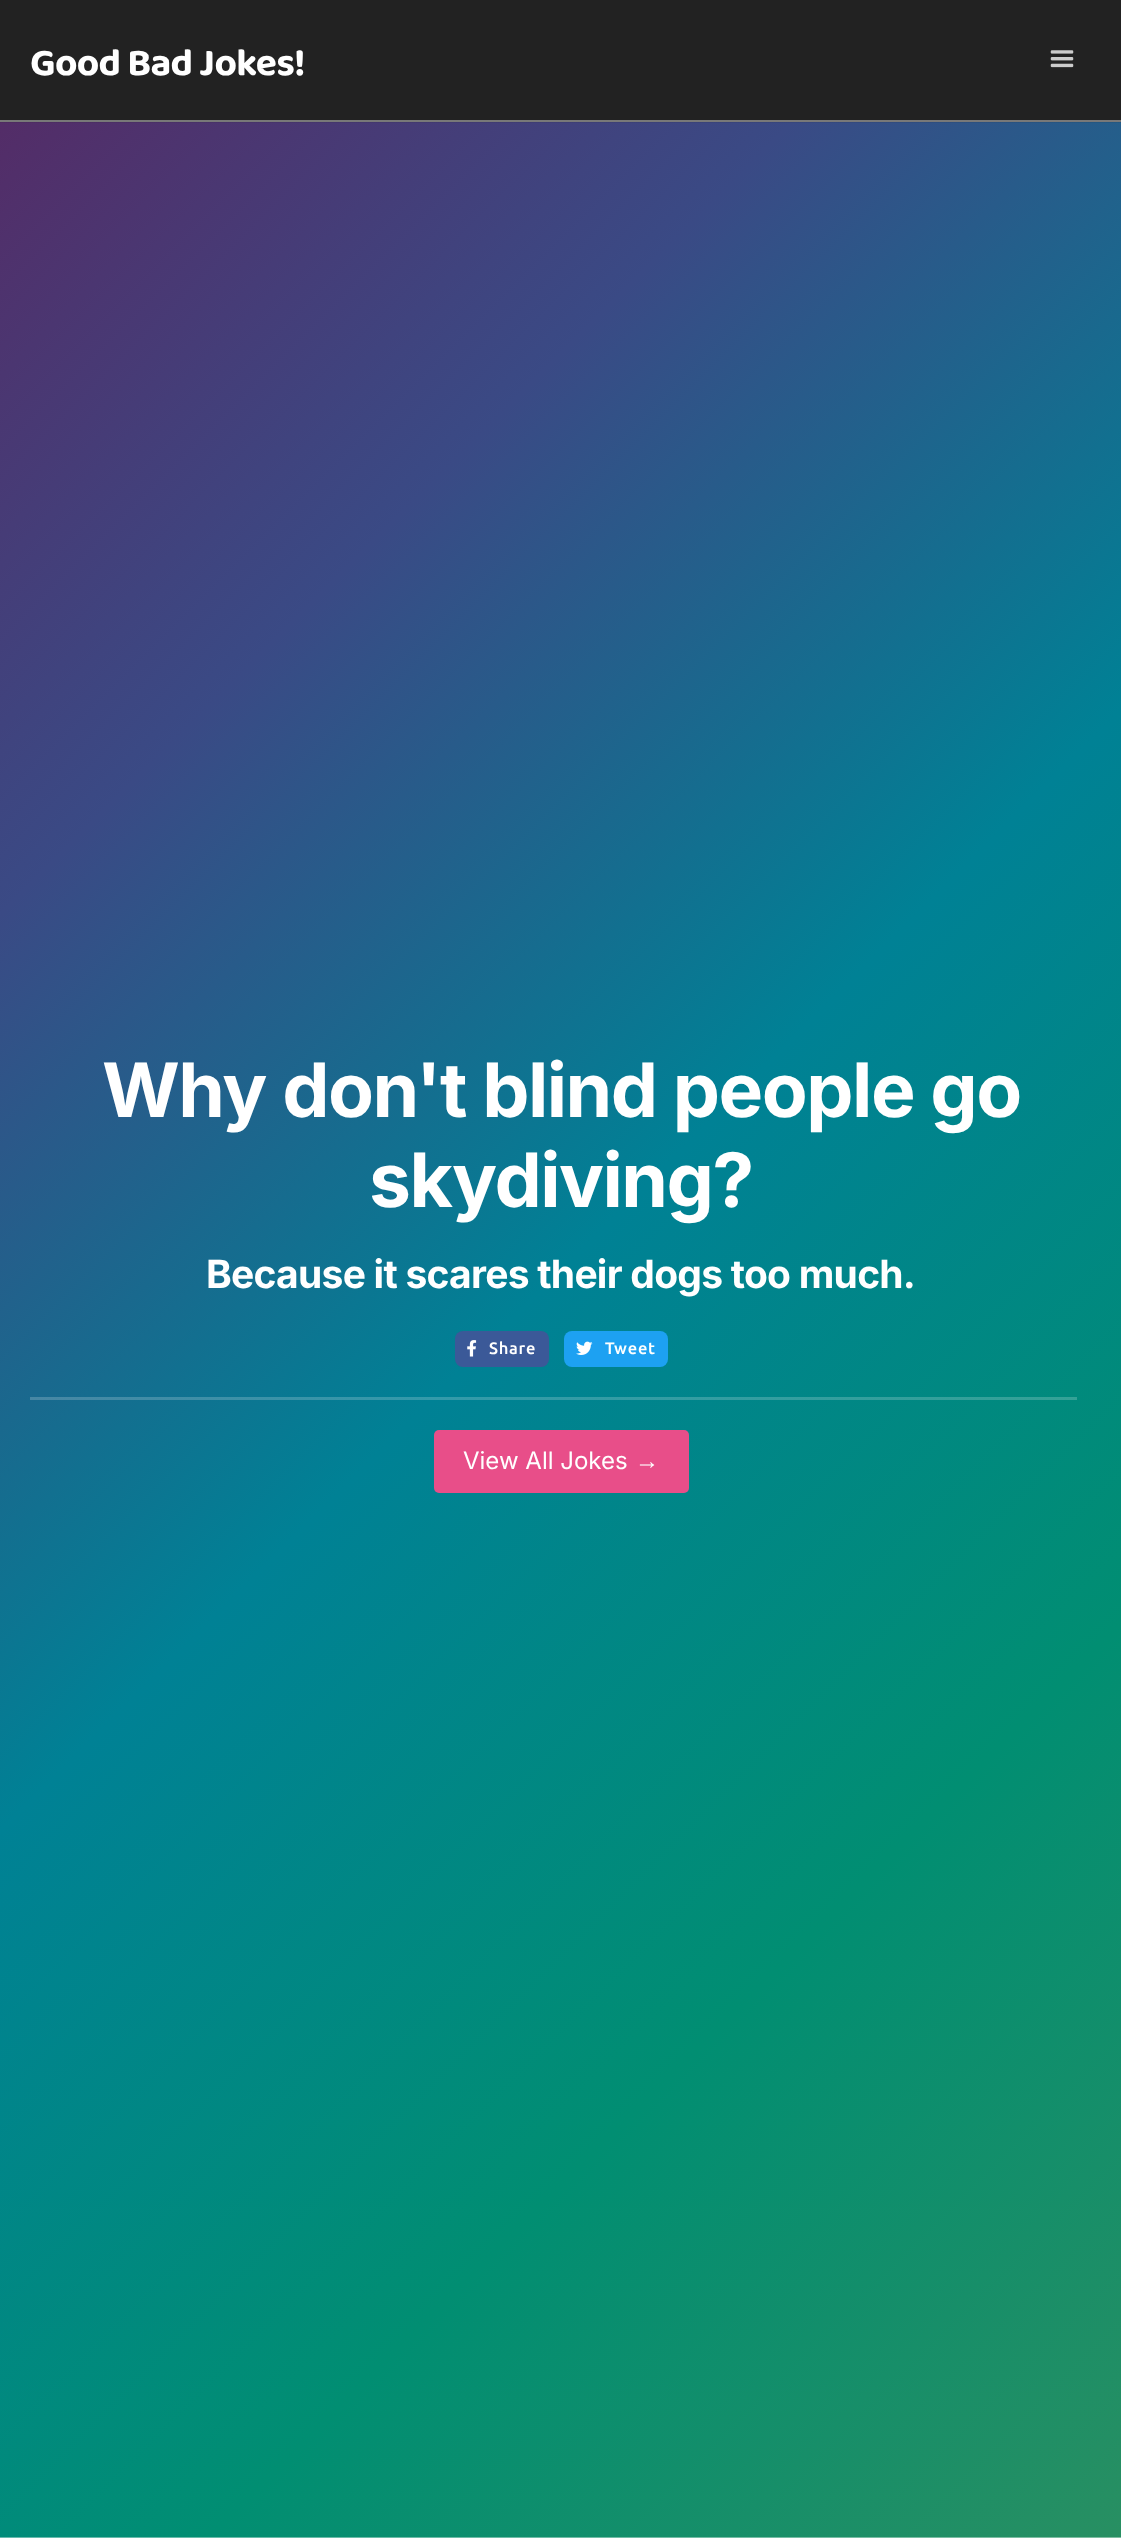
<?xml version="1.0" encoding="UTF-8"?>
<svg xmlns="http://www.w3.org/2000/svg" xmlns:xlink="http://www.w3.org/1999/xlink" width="1121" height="2538">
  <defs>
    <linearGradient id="g1" gradientUnits="userSpaceOnUse" x1="-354" y1="354" x2="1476" y2="2184"><stop offset="0" stop-color="#572863" /><stop offset="0.25" stop-color="#3a4a85" /><stop offset="0.5" stop-color="#008195" /><stop offset="0.75" stop-color="#018e72" /><stop offset="1" stop-color="#288f62" /></linearGradient>
    <linearGradient id="g2" gradientUnits="userSpaceOnUse" x1="-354" y1="354" x2="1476" y2="2184"><stop offset="0" stop-color="#52265d" /><stop offset="0.25" stop-color="#37467d" /><stop offset="0.5" stop-color="#00798c" /><stop offset="0.75" stop-color="#01856b" /><stop offset="1" stop-color="#26865c" /></linearGradient>
    <linearGradient id="g3" gradientUnits="userSpaceOnUse" x1="-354" y1="354" x2="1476" y2="2184"><stop offset="0" stop-color="#795382" /><stop offset="0.25" stop-color="#616e9d" /><stop offset="0.5" stop-color="#339aaa" /><stop offset="0.75" stop-color="#34a58e" /><stop offset="1" stop-color="#53a581" /></linearGradient>
    <linearGradient id="g4" gradientUnits="userSpaceOnUse" x1="-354" y1="354" x2="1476" y2="2184"><stop offset="0" stop-color="#9a7ea1" /><stop offset="0.25" stop-color="#8992b6" /><stop offset="0.5" stop-color="#66b3bf" /><stop offset="0.75" stop-color="#67bbaa" /><stop offset="1" stop-color="#7ebca1" /></linearGradient>
  </defs>
  <rect width="100%" height="100%" fill="#ffffff" />
  <rect y="123" width="1121" height="2414" fill="url(#g1)" />
  <rect y="122" width="1121" height="1" fill="url(#g2)" />
  <rect x="30" y="1397" width="1047" height="3" fill="url(#g3)" />
  <rect y="2537" width="1121" height="1" fill="url(#g4)" />
  <rect width="1121" height="120" fill="#222222" />
  <rect y="120" width="1121" height="2" fill="#787878" />
  <image x="1050" y="50" width="24" height="18" xlink:href="image1.png" />
  <rect x="455" y="1331" width="94" height="36" rx="8" fill="#3b5998" />
  <image x="467" y="1340" width="10" height="17" xlink:href="image2.png" />
  <rect x="564" y="1331" width="104" height="36" rx="8" fill="#1da1f2" />
  <image x="576" y="1341" width="17" height="14" xlink:href="image3.png" />
  <rect x="434" y="1430" width="255" height="63" rx="5" fill="#e84e89" />
  <text x="30" y="75" style="font-family: 'Baloo 2'; font-size: 39px; font-weight: bold; letter-spacing: -0.75px; fill: #ffffff">Good Bad Jokes!</text>
  <text x="102" y="1117" style="font-family: Inter; font-size: 75px; font-weight: bold; letter-spacing: -1.5px; fill: #ffffff">Why don't blind people go</text>
  <text x="369" y="1207" style="font-family: Inter; font-size: 75px; font-weight: bold; letter-spacing: -1.5px; fill: #ffffff">skydiving?</text>
  <text x="206" y="1288" style="font-family: Inter; font-size: 39px; font-weight: bold; letter-spacing: -0.75px; fill: #ffffff">Because it scares their dogs too much.</text>
  <text x="489" y="1354" style="font-family: Ubuntu; font-size: 16.5px; font-weight: 500; letter-spacing: 0.75px; fill: #ffffff">Share</text>
  <text x="605" y="1354" style="font-family: Ubuntu; font-size: 16.5px; font-weight: 500; letter-spacing: 0.75px; fill: #ffffff">Tweet</text>
  <text x="463" y="1469" style="font-family: Inter; font-size: 24px; fill: #ffffff">View All Jokes</text>
  <text x="635" y="1469" style="font-family: Liberation Sans; font-size: 24px; fill: #ffffff">→</text>
</svg>
